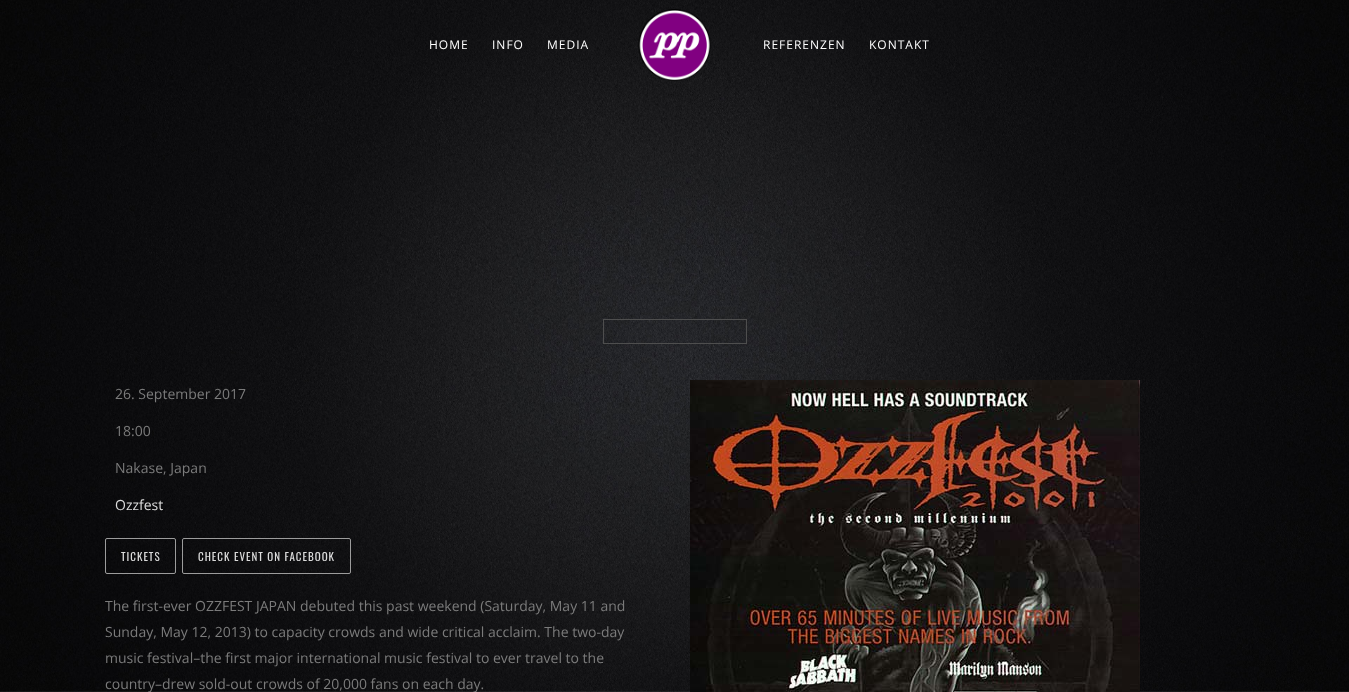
<?xml version="1.0" encoding="UTF-8"?>
<svg xmlns="http://www.w3.org/2000/svg" xmlns:xlink="http://www.w3.org/1999/xlink" width="1349" height="692">
  <rect width="100%" height="100%" fill="#ffffff" />
  <image x="0" y="0" width="1349" height="692" xlink:href="image1.png" />
  <image x="638" y="9" width="73" height="72" xlink:href="image2.png" />
  <rect x="603.5" y="319.5" width="143" height="24" fill="none" stroke="#4e4e4e" />
  <rect x="105.5" y="538.5" width="70" height="35" rx="1.5" fill="none" stroke="#9c9c9c" />
  <rect x="182.5" y="538.5" width="168" height="35" rx="1.5" fill="none" stroke="#9c9c9c" />
  <image x="690" y="380" width="450" height="312" xlink:href="image3.png" />
  <text x="429" y="49" style="font-family: Open Sans; font-size: 12px; letter-spacing: 1px; fill: #ffffff">HOME</text>
  <text x="492" y="49" style="font-family: Open Sans; font-size: 12px; letter-spacing: 1px; fill: #ffffff">INFO</text>
  <text x="547" y="49" style="font-family: Open Sans; font-size: 12px; letter-spacing: 1px; fill: #ffffff">MEDIA</text>
  <text x="763" y="49" style="font-family: Open Sans; font-size: 12px; letter-spacing: 1px; fill: #ffffff">REFERENZEN</text>
  <text x="869" y="49" style="font-family: Open Sans; font-size: 12px; letter-spacing: 1px; fill: #ffffff">KONTAKT</text>
  <text x="115" y="399" style="font-family: Open Sans; font-size: 14px; fill: #7b7b7b">26. September 2017</text>
  <text x="115" y="436" style="font-family: Open Sans; font-size: 14px; fill: #7b7b7b">18:00</text>
  <text x="115" y="473" style="font-family: Open Sans; font-size: 14px; fill: #7b7b7b">Nakase, Japan</text>
  <text x="115" y="510" style="font-family: Open Sans; font-size: 14px; fill: #dcdcdc">Ozzfest</text>
  <text x="121" y="561" style="font-family: Oswald; font-size: 11px; letter-spacing: 1px; fill: #dcdcdc">TICKETS</text>
  <text x="198" y="561" style="font-family: Oswald; font-size: 11px; letter-spacing: 1px; fill: #dcdcdc">CHECK EVENT ON FACEBOOK</text>
  <text x="105" y="611" style="font-family: Open Sans; font-size: 14px; fill: #7b7b7b">The first-ever OZZFEST JAPAN debuted this past weekend (Saturday, May 11 and</text>
  <text x="105" y="637" style="font-family: Open Sans; font-size: 14px; fill: #7b7b7b">Sunday, May 12, 2013) to capacity crowds and wide critical acclaim. The two-day</text>
  <text x="105" y="663" style="font-family: Open Sans; font-size: 14px; fill: #7b7b7b">music festival–the first major international music festival to ever travel to the</text>
  <text x="105" y="689" style="font-family: Open Sans; font-size: 14px; fill: #7b7b7b">country–drew sold-out crowds of 20,000 fans on each day.</text>
</svg>
